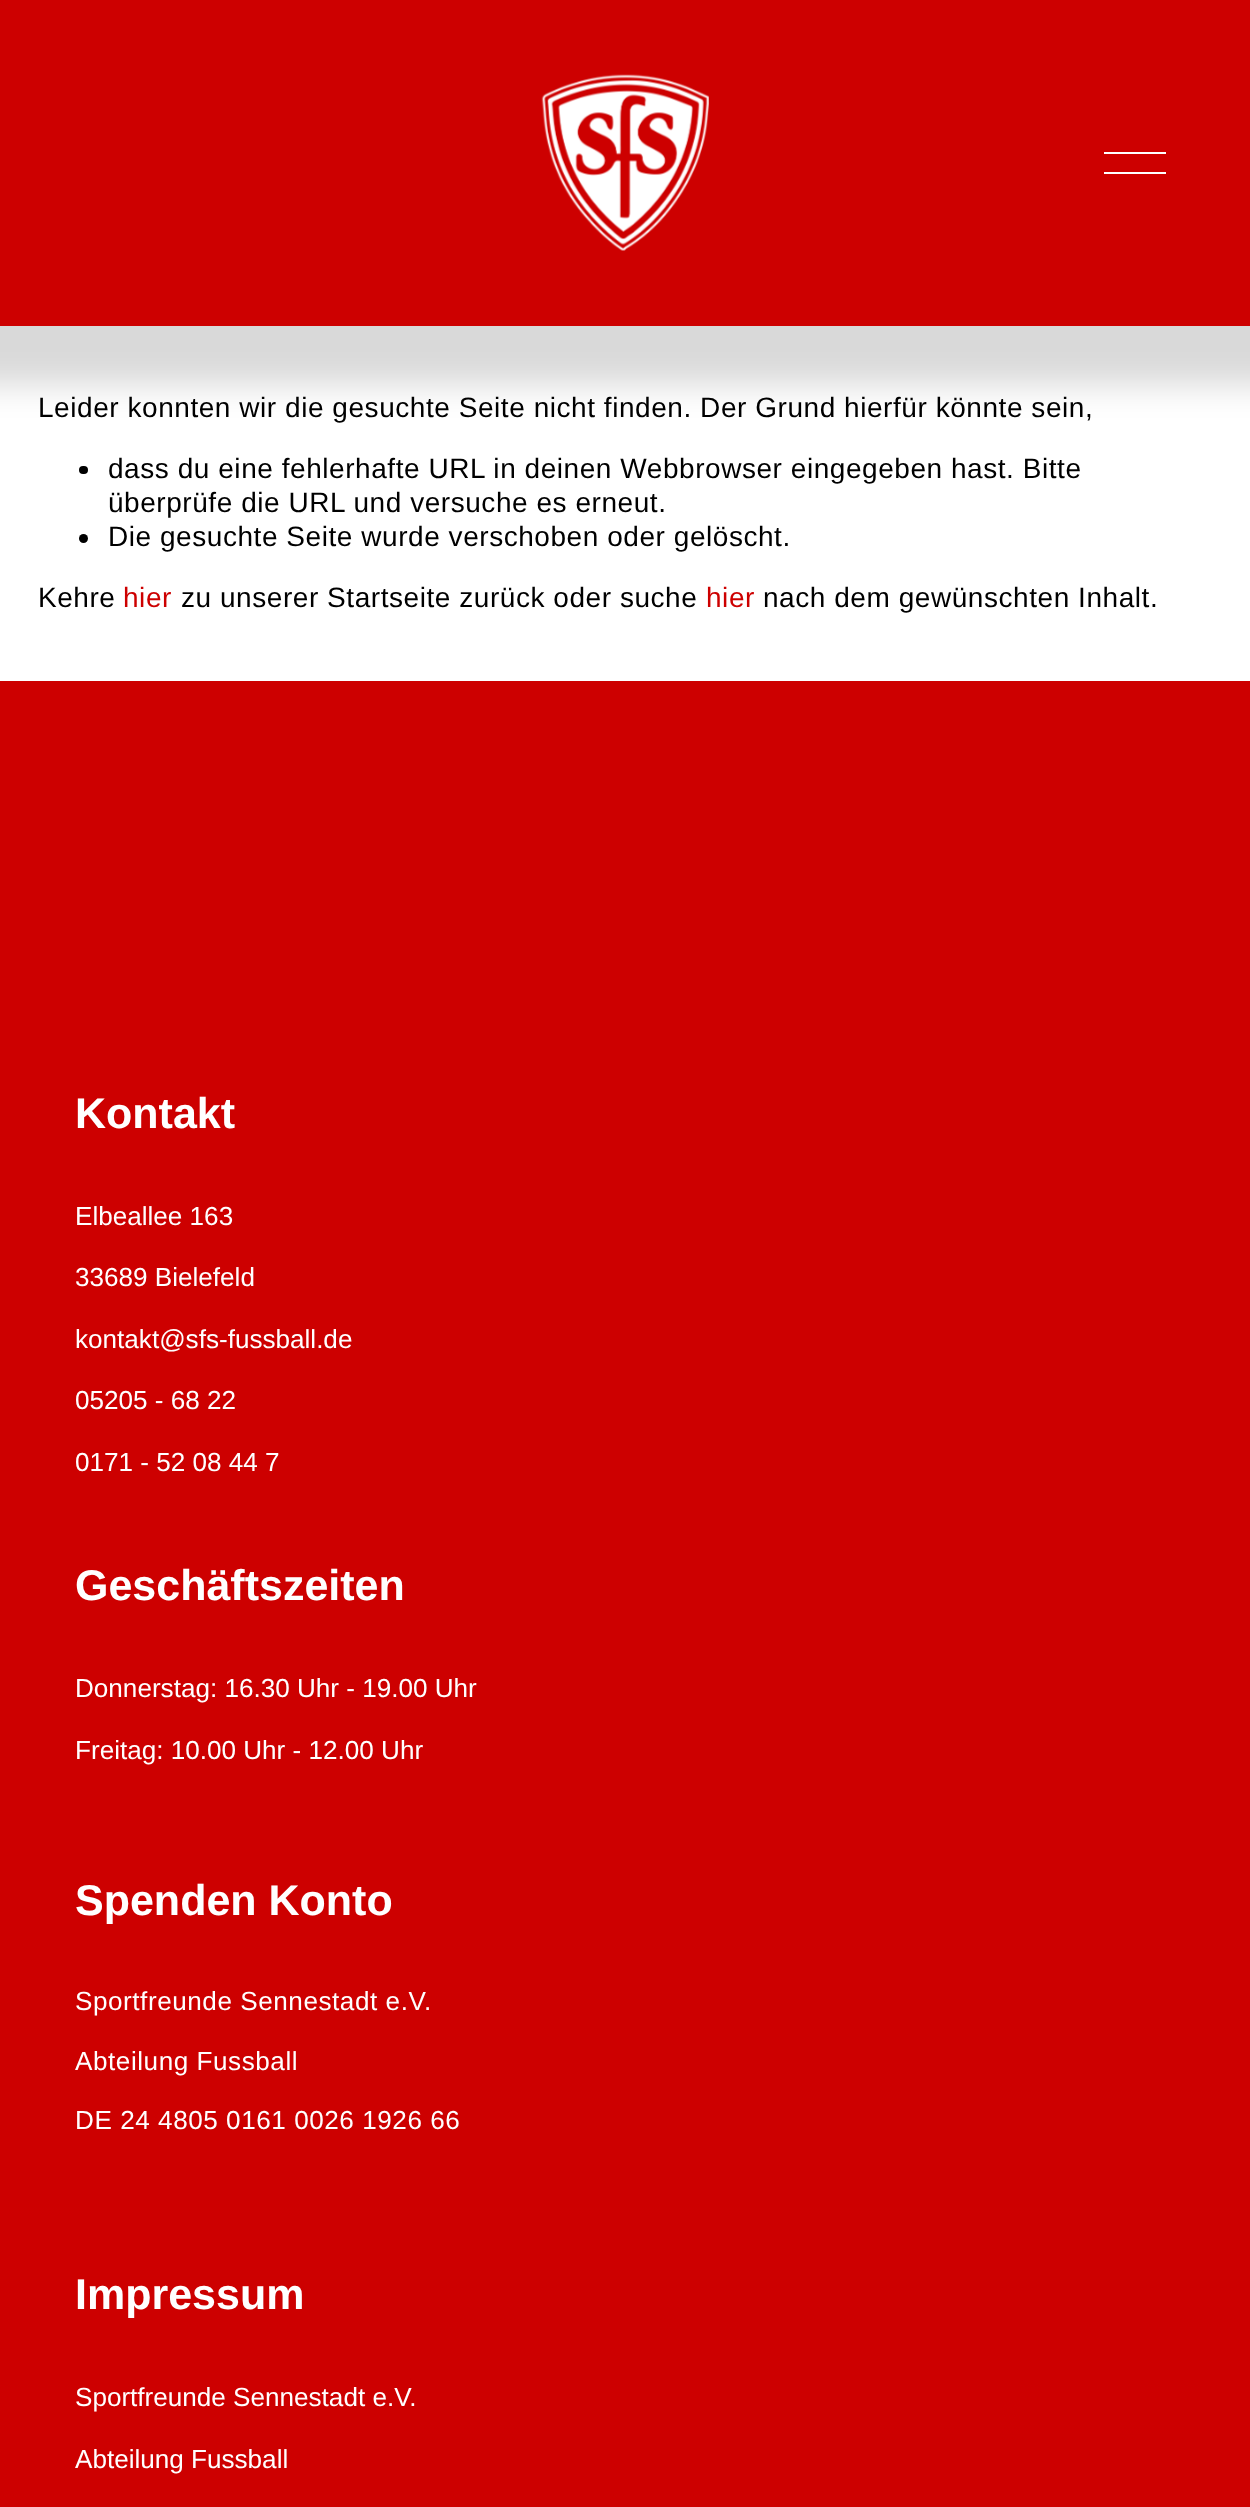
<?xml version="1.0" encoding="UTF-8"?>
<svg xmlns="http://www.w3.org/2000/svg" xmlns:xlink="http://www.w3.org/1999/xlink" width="1250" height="2507">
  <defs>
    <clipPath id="clip1"><path d="M 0 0 h 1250 v 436 h -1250 z m 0 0 h 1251 v 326 h -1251 z" clip-rule="evenodd" /></clipPath>
  </defs>
  <rect width="100%" height="100%" fill="#ffffff" />
  <rect width="1250" height="326" fill="#cd0000" />
  <g clip-path="url(#clip1)">
    <rect x="-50" y="-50" width="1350" height="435" fill="#000000" fill-opacity="0.15" filter="blur(16.5px)" />
  </g>
  <image x="541" y="74" width="168" height="177" xlink:href="image1.png" />
  <rect x="1104" y="152" width="62" height="2" fill="#ffffff" />
  <rect x="1104" y="172" width="62" height="2" fill="#ffffff" />
  <rect x="79" y="466" width="9" height="8" rx="4" fill="#000000" />
  <circle cx="83.5" cy="538.5" r="4.5" fill="#000000" />
  <rect y="681" width="1250" height="1826" fill="#cd0000" />
  <text x="38" y="417" style="font-family: Liberation Sans; font-size: 28px; letter-spacing: 0.55px; fill: #000000">Leider konnten wir die gesuchte Seite nicht finden. Der Grund hierfür könnte sein,</text>
  <text x="108" y="478" style="font-family: Liberation Sans; font-size: 28px; letter-spacing: 0.55px; fill: #000000">dass du eine fehlerhafte URL in deinen Webbrowser eingegeben hast. Bitte</text>
  <text x="108" y="512" style="font-family: Liberation Sans; font-size: 28px; letter-spacing: 0.55px; fill: #000000">überprüfe die URL und versuche es erneut.</text>
  <text x="108" y="546" style="font-family: Liberation Sans; font-size: 28px; letter-spacing: 0.55px; fill: #000000">Die gesuchte Seite wurde verschoben oder gelöscht.</text>
  <text x="38" y="607" style="font-family: Liberation Sans; font-size: 28px; letter-spacing: 0.55px; fill: #000000">Kehre</text>
  <text x="123" y="607" style="font-family: Liberation Sans; font-size: 28px; letter-spacing: 0.55px; fill: #cd0000">hier</text>
  <text x="181" y="607" style="font-family: Liberation Sans; font-size: 28px; letter-spacing: 0.55px; fill: #000000">zu unserer Startseite zurück oder suche</text>
  <text x="706" y="607" style="font-family: Liberation Sans; font-size: 28px; letter-spacing: 0.55px; fill: #cd0000">hier</text>
  <text x="763" y="607" style="font-family: Liberation Sans; font-size: 28px; letter-spacing: 0.55px; fill: #000000">nach dem gewünschten Inhalt.</text>
  <text x="75" y="1128" style="font-family: Liberation Sans; font-size: 43px; font-weight: bold; fill: #ffffff">Kontakt</text>
  <text x="75" y="1225" style="font-family: Liberation Sans; font-size: 26.1px; fill: #ffffff">Elbeallee 163</text>
  <text x="75" y="1286" style="font-family: Liberation Sans; font-size: 26.1px; fill: #ffffff">33689 Bielefeld</text>
  <text x="75" y="1348" style="font-family: Liberation Sans; font-size: 26.1px; fill: #ffffff">kontakt@sfs-fussball.de</text>
  <text x="75" y="1409" style="font-family: Liberation Sans; font-size: 26.1px; fill: #ffffff">05205 - 68 22</text>
  <text x="75" y="1471" style="font-family: Liberation Sans; font-size: 26.1px; fill: #ffffff">0171 - 52 08 44 7</text>
  <text x="75" y="1600" style="font-family: Liberation Sans; font-size: 43px; font-weight: bold; fill: #ffffff">Geschäftszeiten</text>
  <text x="75" y="1697" style="font-family: Liberation Sans; font-size: 26.1px; fill: #ffffff">Donnerstag: 16.30 Uhr - 19.00 Uhr</text>
  <text x="75" y="1759" style="font-family: Liberation Sans; font-size: 26.1px; fill: #ffffff">Freitag: 10.00 Uhr - 12.00 Uhr</text>
  <text x="75" y="1915" style="font-family: Liberation Sans; font-size: 43px; font-weight: bold; fill: #ffffff">Spenden Konto</text>
  <text x="75" y="2010" style="font-family: Liberation Sans; font-size: 26.1px; letter-spacing: 0.55px; fill: #ffffff">Sportfreunde Sennestadt e.V.</text>
  <text x="75" y="2070" style="font-family: Liberation Sans; font-size: 26.1px; letter-spacing: 0.55px; fill: #ffffff">Abteilung Fussball</text>
  <text x="75" y="2129" style="font-family: Liberation Sans; font-size: 26.1px; letter-spacing: 0.55px; fill: #ffffff">DE 24 4805 0161 0026 1926 66</text>
  <text x="75" y="2309" style="font-family: Liberation Sans; font-size: 43px; font-weight: bold; fill: #ffffff">Impressum</text>
  <text x="75" y="2406" style="font-family: Liberation Sans; font-size: 26.1px; fill: #ffffff">Sportfreunde Sennestadt e.V.</text>
  <text x="75" y="2468" style="font-family: Liberation Sans; font-size: 26.1px; fill: #ffffff">Abteilung Fussball</text>
</svg>
